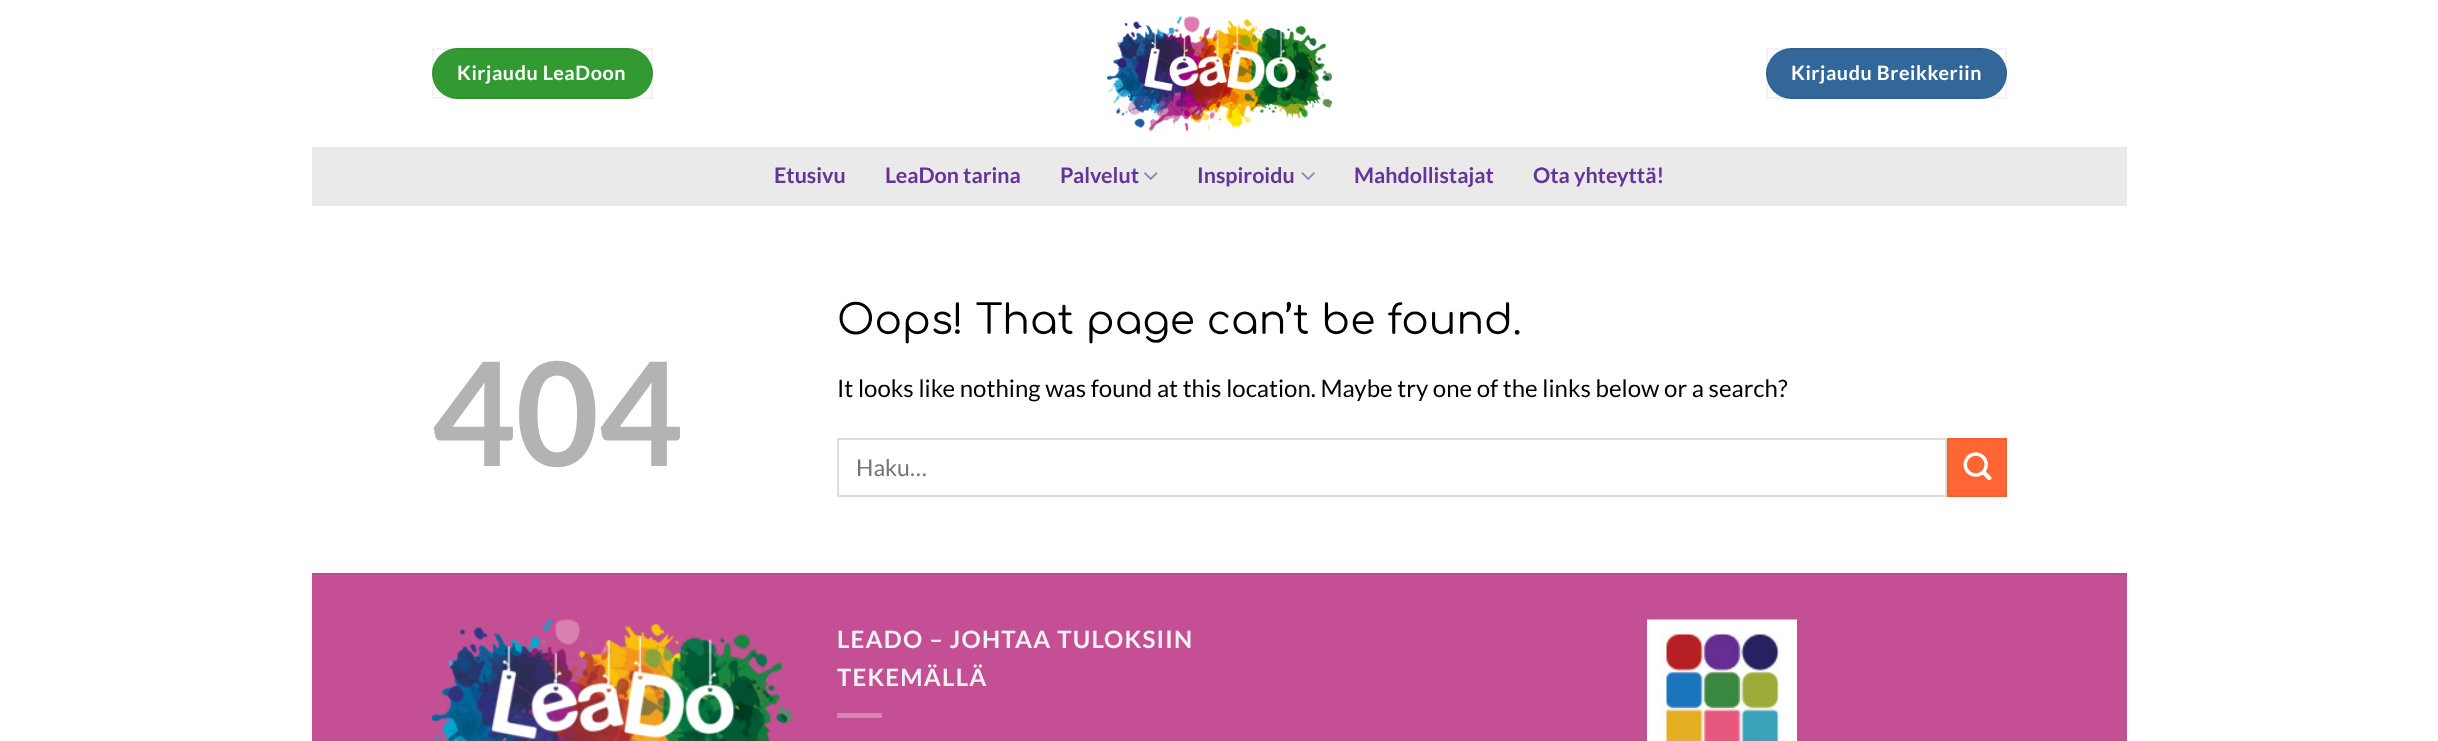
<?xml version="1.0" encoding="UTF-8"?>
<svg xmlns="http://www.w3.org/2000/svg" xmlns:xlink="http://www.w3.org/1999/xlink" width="2438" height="741">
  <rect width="100%" height="100%" fill="#ffffff" />
  <rect x="432" y="48" width="221" height="51" rx="25.5" fill="#339933" />
  <rect x="433" y="49" width="219" height="49" fill="none" stroke="#000000" stroke-opacity="0.05" stroke-width="2" />
  <image x="1107" y="16" width="225" height="115" xlink:href="image1.png" />
  <rect x="1766" y="48" width="241" height="51" rx="25.5" fill="#336699" />
  <rect x="1767" y="49" width="239" height="49" fill="none" stroke="#000000" stroke-opacity="0.05" stroke-width="2" />
  <rect x="312" y="147" width="1815" height="59" fill="#eaeaea" />
  <image x="1144" y="172" width="14" height="8" xlink:href="image2.png" />
  <image x="1301" y="172" width="14" height="8" xlink:href="image3.png" />
  <rect x="838" y="439" width="1108" height="57" fill="none" stroke="#dddddd" stroke-width="2" />
  <rect x="1948" y="439" width="58" height="57" fill="#ff6633" stroke="#f26130" stroke-width="2" />
  <image x="1963" y="452" width="29" height="29" xlink:href="image4.png" />
  <rect x="312" y="575" width="1815" height="166" fill="#c44f95" />
  <rect x="312" y="573" width="1815" height="2" fill="#ba4b8e" />
  <image x="432" y="619" width="360" height="122" xlink:href="image5.png" />
  <rect x="837" y="713" width="45" height="5" fill="#d684b5" />
  <image x="1647" y="619" width="150" height="122" xlink:href="image6.png" />
  <text x="457" y="80" style="font-family: Lato; font-size: 19.75px; font-weight: bold; letter-spacing: 0.6px; fill: #ffffff">Kirjaudu LeaDoon</text>
  <text x="1791" y="80" style="font-family: Lato; font-size: 19.75px; font-weight: bold; letter-spacing: 0.6px; fill: #ffffff">Kirjaudu Breikkeriin</text>
  <text x="774" y="183" style="font-family: Lato; font-size: 21.5px; font-weight: bold; fill: #663399">Etusivu</text>
  <text x="885" y="183" style="font-family: Lato; font-size: 21.5px; font-weight: bold; fill: #663399">LeaDon tarina</text>
  <text x="1060" y="183" style="font-family: Lato; font-size: 21.5px; font-weight: bold; fill: #663399">Palvelut</text>
  <text x="1197" y="183" style="font-family: Lato; font-size: 21.5px; font-weight: bold; fill: #663399">Inspiroidu</text>
  <text x="1354" y="183" style="font-family: Lato; font-size: 21.5px; font-weight: bold; fill: #663399">Mahdollistajat</text>
  <text x="1533" y="183" style="font-family: Lato; font-size: 21.5px; font-weight: bold; fill: #663399">Ota yhteyttä!</text>
  <text x="432" y="466" style="font-family: Lato; font-size: 144px; font-weight: bold; fill: #b3b3b3">404</text>
  <text x="837" y="334" style="font-family: Comfortaa; font-size: 40.75px; fill: #000000">Oops! That page can’t be found.</text>
  <text x="837" y="397" style="font-family: Lato; font-size: 24px; fill: #000000">It looks like nothing was found at this location. Maybe try one of the links below or a search?</text>
  <text x="856" y="476" style="font-family: Lato; font-size: 23px; fill: #757575">Haku…</text>
  <text x="837" y="648" style="font-family: Lato; font-size: 24px; font-weight: bold; letter-spacing: 1.2px; fill: #f1f1f1">LEADO – JOHTAA TULOKSIIN</text>
  <text x="837" y="686" style="font-family: Lato; font-size: 24px; font-weight: bold; letter-spacing: 1.2px; fill: #f1f1f1">TEKEMÄLLÄ</text>
</svg>
